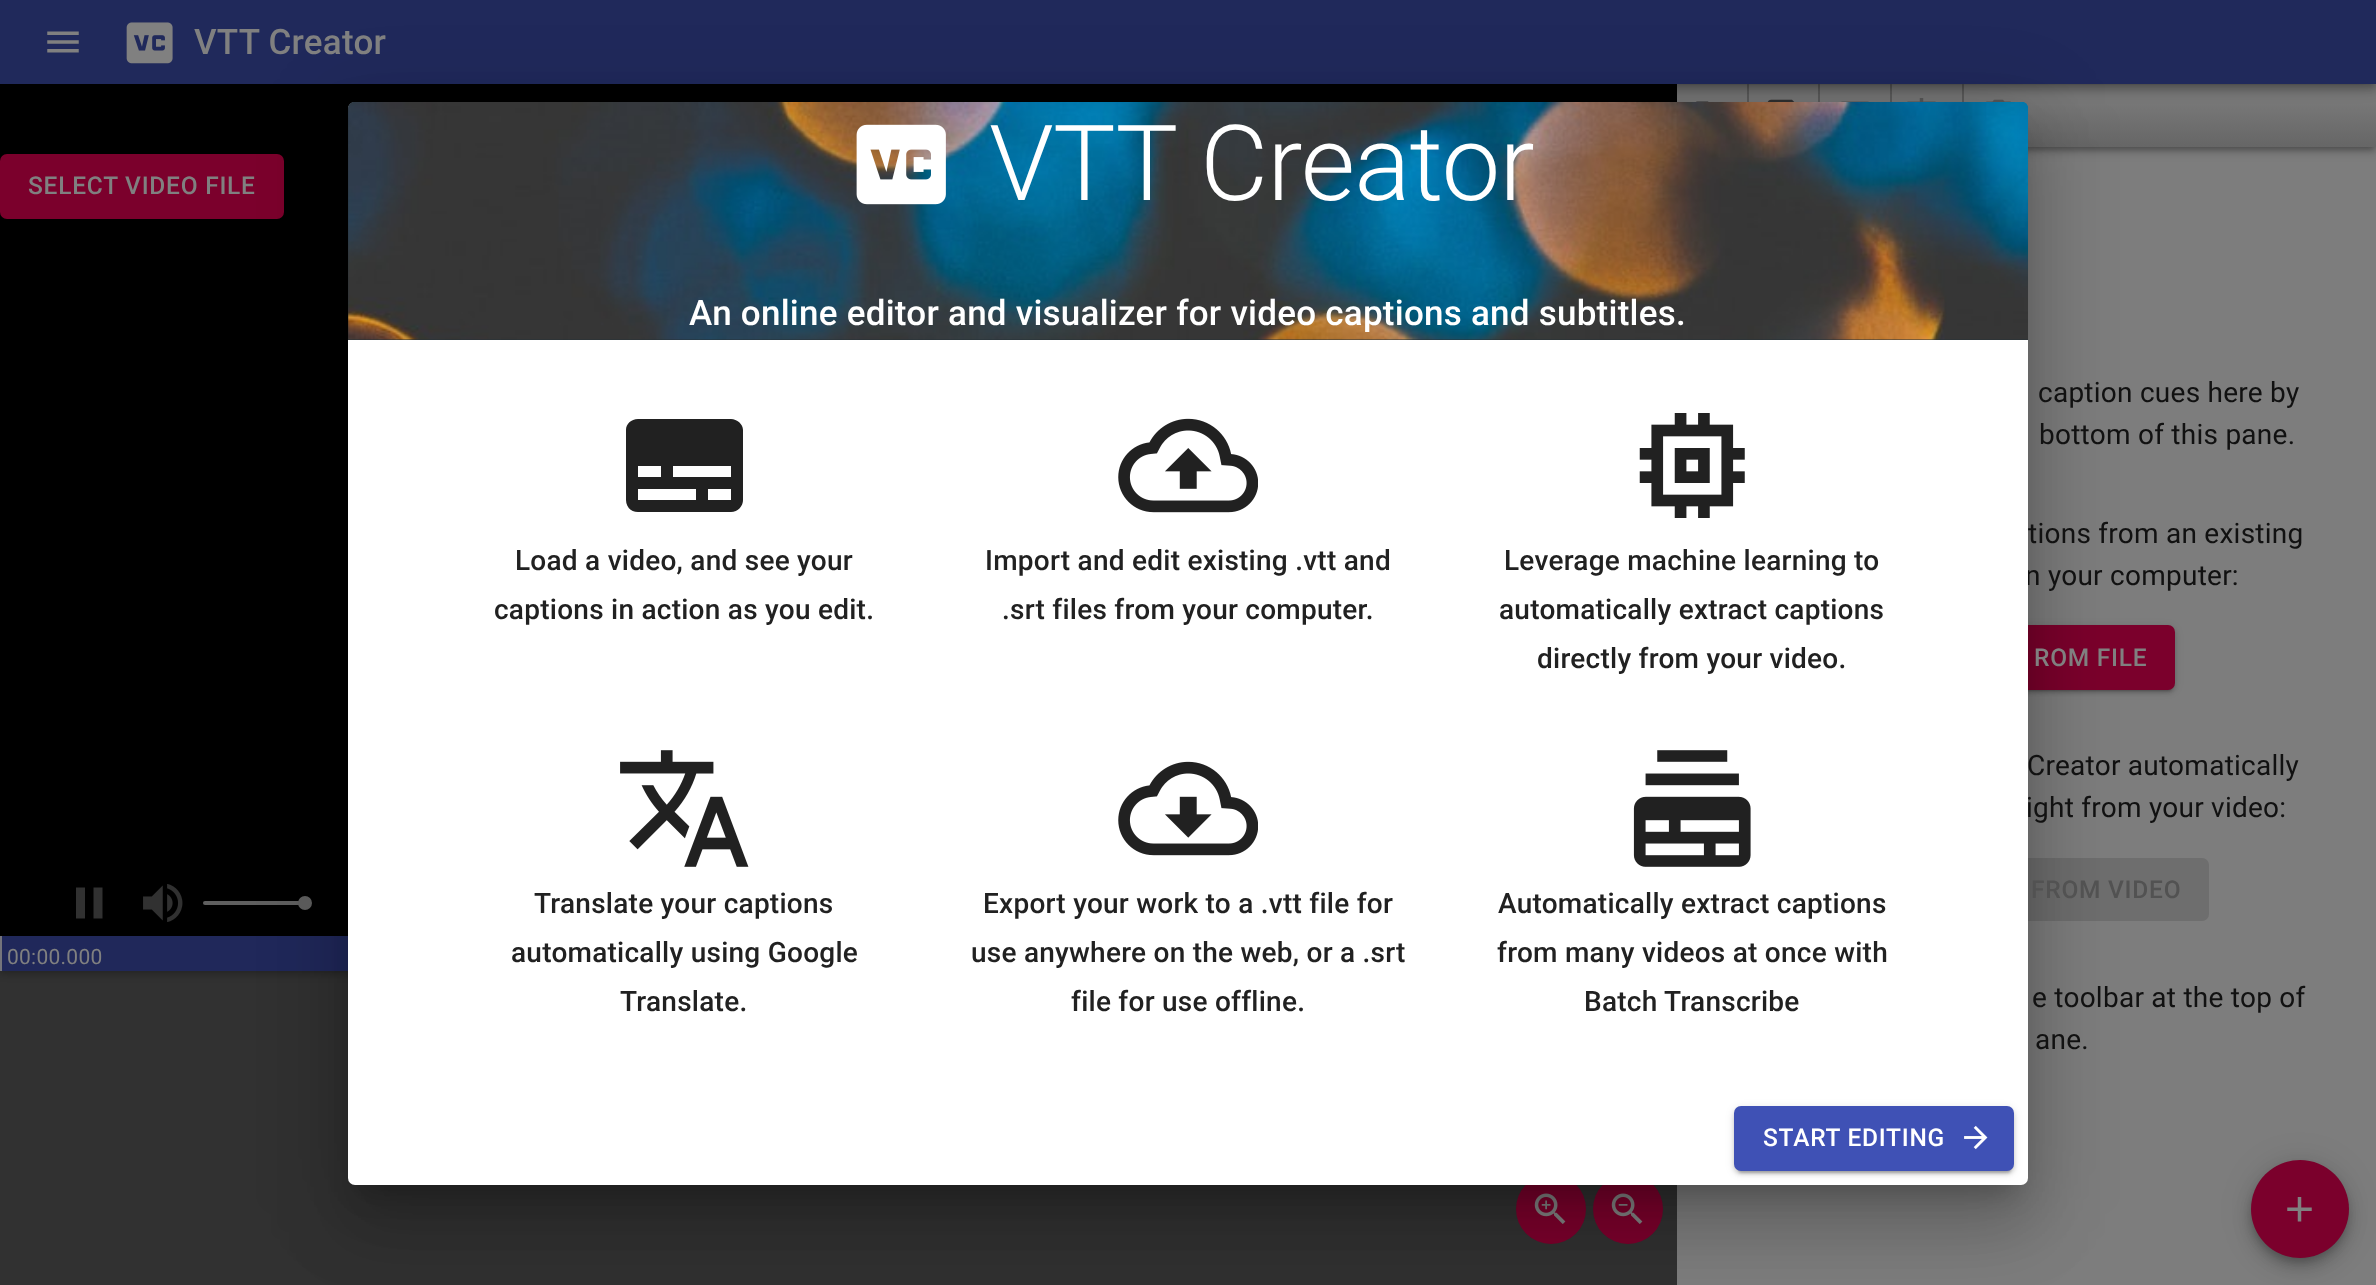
<?xml version="1.0" encoding="UTF-8"?>
<svg xmlns="http://www.w3.org/2000/svg" xmlns:xlink="http://www.w3.org/1999/xlink" width="2376" height="1285">
  <defs>
    <linearGradient id="g1" gradientUnits="userSpaceOnUse" x1="2027" y1="84" x2="2027" y2="147"><stop offset="0" stop-color="#777777" /><stop offset="0.3" stop-color="#777777" /><stop offset="1" stop-color="#666666" /></linearGradient>
    <linearGradient id="g2" gradientUnits="userSpaceOnUse" x1="2027" y1="84" x2="2027" y2="147"><stop offset="0" stop-color="#5c5c5c" /><stop offset="0.3" stop-color="#5c5c5c" /><stop offset="1" stop-color="#4f4f4f" /></linearGradient>
    <clipPath id="clip1"><rect x="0" y="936" width="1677" height="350" /></clipPath>
  </defs>
  <rect width="100%" height="100%" fill="#7d7d7d" />
  <rect y="84" width="1677" height="852" fill="#000000" />
  <rect x="1677" y="86" width="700" height="63" fill="#000000" fill-opacity="0.12" filter="blur(7px)" />
  <rect x="1677" y="89" width="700" height="63" fill="#000000" fill-opacity="0.14" filter="blur(3.5px)" />
  <rect x="1680" y="93" width="693" height="56" fill="#000000" fill-opacity="0.2" filter="blur(2.5px)" />
  <rect x="1677" y="85" width="699" height="62" fill="url(#g1)" />
  <rect x="1818" y="84" width="2" height="18" fill="url(#g2)" />
  <rect x="1747" y="84" width="2" height="18" fill="url(#g2)" />
  <rect x="1962" y="84" width="2" height="18" fill="url(#g2)" />
  <rect x="1890" y="84" width="2" height="18" fill="url(#g2)" />
  <image x="1696" y="101" width="13" height="1" xlink:href="image7.png" />
  <image x="1767" y="99" width="28" height="3" xlink:href="image8.png" />
  <image x="1841" y="101" width="28" height="1" xlink:href="image9.png" />
  <image x="1907" y="98" width="29" height="4" xlink:href="image10.png" />
  <image x="1986" y="99" width="25" height="3" xlink:href="image11.png" />
  <rect y="2" width="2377" height="84" fill="#000000" fill-opacity="0.12" filter="blur(9px)" />
  <rect y="7" width="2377" height="84" fill="#000000" fill-opacity="0.14" filter="blur(4.5px)" />
  <rect x="2" y="5" width="2373" height="81" fill="#000000" fill-opacity="0.2" filter="blur(3.5px)" />
  <rect width="2376" height="84" fill="#20295b" />
  <image x="47" y="31" width="32" height="22" xlink:href="image1.png" />
  <image x="126" y="22" width="47" height="42" xlink:href="image2.png" />
  <rect y="154" width="284" height="65" rx="7" fill="#7b002c" />
  <path d="M 76 918.5 h 9 v -31 h -9 z m 17.5 -31 v 31 h 9 v -31 z" fill="#313131" />
  <image x="143" y="884" width="40" height="38" xlink:href="image3.png" />
  <rect x="203" y="901" width="102" height="4" rx="2" fill="#5f5f5f" />
  <circle cx="305" cy="903" r="7" fill="#5f5f5f" />
  <rect y="971" width="1677" height="314" fill="#313131" />
  <g clip-path="url(#clip1)">
    <rect y="938" width="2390" height="35" fill="#000000" fill-opacity="0.3" filter="blur(4.5px)" />
  </g>
  <image x="0" y="936" width="348" height="35" xlink:href="image4.png" />
  <circle cx="1551" cy="1209" r="35" fill="#7b002c" />
  <image x="1534" y="1193" width="32" height="31" xlink:href="image5.png" />
  <circle cx="1628" cy="1209" r="35" fill="#7b002c" />
  <image x="1611" y="1193" width="32" height="31" xlink:href="image6.png" />
  <rect x="1878" y="627" width="297" height="64" rx="7" fill="#000000" fill-opacity="0.12" filter="blur(4.5px)" />
  <rect x="1878" y="628" width="297" height="65" rx="7" fill="#000000" fill-opacity="0.14" filter="blur(2px)" />
  <rect x="1881" y="634" width="291" height="57" rx="4" fill="#000000" fill-opacity="0.2" filter="blur(1px)" />
  <rect x="1878" y="625" width="297" height="65" rx="7" fill="#7b002c" />
  <rect x="1845" y="858" width="364" height="63" rx="7" fill="#6e6e6e" />
  <rect x="2251" y="1162" width="98" height="98" rx="49" fill="#000000" fill-opacity="0.12" filter="blur(16px)" />
  <rect x="2251" y="1171" width="98" height="98" rx="49" fill="#000000" fill-opacity="0.14" filter="blur(9px)" />
  <rect x="2252" y="1167" width="95" height="95" rx="47.5" fill="#000000" fill-opacity="0.2" filter="blur(4.5px)" />
  <circle cx="2300" cy="1209" r="49" fill="#7b002c" />
  <image x="2287" y="1197" width="25" height="25" xlink:href="image12.png" />
  <rect x="334" y="103" width="1708" height="1112" rx="21" fill="#000000" fill-opacity="0.12" filter="blur(40px)" />
  <rect x="343" y="138" width="1691" height="1094" rx="12" fill="#000000" fill-opacity="0.14" filter="blur(33px)" />
  <rect x="361" y="133" width="1655" height="1059" fill="#000000" fill-opacity="0.2" filter="blur(13px)" />
  <text x="194" y="54" style="font-family: Roboto; font-size: 35px; font-weight: 500; letter-spacing: 0.25px; fill: #808080">VTT Creator</text>
  <text x="28" y="194" style="font-family: Roboto; font-size: 24.5px; font-weight: 500; letter-spacing: 0.75px; fill: #808080">SELECT VIDEO FILE</text>
  <text x="7" y="964" style="font-family: Roboto; font-size: 21px; letter-spacing: 0.25px; fill: #808080">00:00.000</text>
  <text x="2038" y="402" style="font-family: Roboto; font-size: 28px; letter-spacing: 0.25px; fill: #111111">caption cues here by</text>
  <text x="2039" y="444" style="font-family: Roboto; font-size: 28px; letter-spacing: 0.25px; fill: #111111">bottom of this pane.</text>
  <text x="2028" y="543" style="font-family: Roboto; font-size: 28px; letter-spacing: 0.25px; fill: #111111">tions from an existing</text>
  <text x="2025" y="585" style="font-family: Roboto; font-size: 28px; letter-spacing: 0.25px; fill: #111111">n your computer:</text>
  <text x="2034" y="666" style="font-family: Roboto; font-size: 24.5px; font-weight: 500; letter-spacing: 0.75px; fill: #808080">ROM FILE</text>
  <text x="2027" y="775" style="font-family: Roboto; font-size: 28px; letter-spacing: 0.25px; fill: #111111">Creator automatically</text>
  <text x="2026" y="817" style="font-family: Roboto; font-size: 28px; letter-spacing: 0.25px; fill: #111111">ight from your video:</text>
  <text x="2031" y="898" style="font-family: Roboto; font-size: 24.5px; font-weight: 500; letter-spacing: 0.75px; fill: #525252">FROM VIDEO</text>
  <text x="2032" y="1007" style="font-family: Roboto; font-size: 28px; letter-spacing: 0.25px; fill: #111111">e toolbar at the top of</text>
  <text x="2035" y="1049" style="font-family: Roboto; font-size: 28px; letter-spacing: 0.25px; fill: #111111">ane.</text>
  <rect x="348" y="102" width="1680" height="1083" rx="7" fill="#ffffff" />
  <path d="M 355 102 h 1666 c 4 0 7 3 7 7 v 231 h -1680 v -231 c 0 -4 3 -7 7 -7 z" fill="#263238" />
  <image x="348" y="102" width="1680" height="238" xlink:href="image13.png" />
  <image x="856" y="124" width="90" height="81" xlink:href="image14.png" />
  <text x="989" y="200" style="font-family: Roboto; font-size: 105px; font-weight: 300; letter-spacing: -0.9px; fill: #ffffff">VTT Creator</text>
  <text x="689" y="325" style="font-family: Roboto; font-size: 35px; font-weight: 500; letter-spacing: 0.25px; fill: #ffffff">An online editor and visualizer for video captions and subtitles.</text>
  <path d="M 731 419 h -93 c -7 0 -12 5 -12 11 v 70 c 0 7 5 12 12 12 h 93 c 6 0 12 -5 12 -12 v -70 c 0 -6 -6 -11 -12 -11 z m -93 47 h 23 v 11 h -23 z m 58 34 h -58 v -11 h 58 z m 35 0 h -23 v -11 h 23 z m 0 -23 h -58 v -11 h 58 z" fill="#212121" />
  <text x="515" y="570" style="font-family: Roboto; font-size: 28px; font-weight: 500; letter-spacing: 0.25px; fill: #212121">Load a video, and see your</text>
  <text x="494" y="619" style="font-family: Roboto; font-size: 28px; font-weight: 500; letter-spacing: 0.25px; fill: #212121">captions in action as you edit.</text>
  <image x="1118" y="418" width="140" height="95" xlink:href="image15.png" />
  <text x="985" y="570" style="font-family: Roboto; font-size: 28px; font-weight: 500; letter-spacing: 0.25px; fill: #212121">Import and edit existing .vtt and</text>
  <text x="1002" y="619" style="font-family: Roboto; font-size: 28px; font-weight: 500; letter-spacing: 0.25px; fill: #212121">.srt files from your computer.</text>
  <image x="1639" y="413" width="106" height="105" xlink:href="image16.png" />
  <text x="1504" y="570" style="font-family: Roboto; font-size: 28px; font-weight: 500; letter-spacing: 0.25px; fill: #212121">Leverage machine learning to</text>
  <text x="1499" y="619" style="font-family: Roboto; font-size: 28px; font-weight: 500; letter-spacing: 0.25px; fill: #212121">automatically extract captions</text>
  <text x="1537" y="668" style="font-family: Roboto; font-size: 28px; font-weight: 500; letter-spacing: 0.25px; fill: #212121">directly from your video.</text>
  <image x="620" y="750" width="129" height="117" xlink:href="image17.png" />
  <text x="534" y="913" style="font-family: Roboto; font-size: 28px; font-weight: 500; letter-spacing: 0.25px; fill: #212121">Translate your captions</text>
  <text x="511" y="962" style="font-family: Roboto; font-size: 28px; font-weight: 500; letter-spacing: 0.25px; fill: #212121">automatically using Google</text>
  <text x="620" y="1011" style="font-family: Roboto; font-size: 28px; font-weight: 500; letter-spacing: 0.25px; fill: #212121">Translate.</text>
  <image x="1118" y="761" width="140" height="95" xlink:href="image18.png" />
  <text x="983" y="913" style="font-family: Roboto; font-size: 28px; font-weight: 500; letter-spacing: 0.25px; fill: #212121">Export your work to a .vtt file for</text>
  <text x="971" y="962" style="font-family: Roboto; font-size: 28px; font-weight: 500; letter-spacing: 0.25px; fill: #212121">use anywhere on the web, or a .srt</text>
  <text x="1071" y="1011" style="font-family: Roboto; font-size: 28px; font-weight: 500; letter-spacing: 0.25px; fill: #212121">file for use offline.</text>
  <image x="1633" y="750" width="118" height="117" xlink:href="image19.png" />
  <text x="1498" y="913" style="font-family: Roboto; font-size: 28px; font-weight: 500; letter-spacing: 0.25px; fill: #212121">Automatically extract captions</text>
  <text x="1497" y="962" style="font-family: Roboto; font-size: 28px; font-weight: 500; letter-spacing: 0.25px; fill: #212121">from many videos at once with</text>
  <text x="1584" y="1011" style="font-family: Roboto; font-size: 28px; font-weight: 500; letter-spacing: 0.25px; fill: #212121">Batch Transcribe</text>
  <rect x="1734" y="1108" width="280" height="65" rx="7" fill="#000000" fill-opacity="0.12" filter="blur(4.5px)" />
  <rect x="1734" y="1110" width="280" height="64" rx="7" fill="#000000" fill-opacity="0.14" filter="blur(2px)" />
  <rect x="1738" y="1115" width="273" height="58" rx="4" fill="#000000" fill-opacity="0.2" filter="blur(1px)" />
  <rect x="1734" y="1106" width="280" height="65" rx="7" fill="#3f51b5" />
  <text x="1763" y="1146" style="font-family: Roboto; font-size: 24.5px; font-weight: 500; letter-spacing: 0.75px; fill: #ffffff">START EDITING</text>
  <image x="1964" y="1125" width="24" height="25" xlink:href="image20.png" />
</svg>
